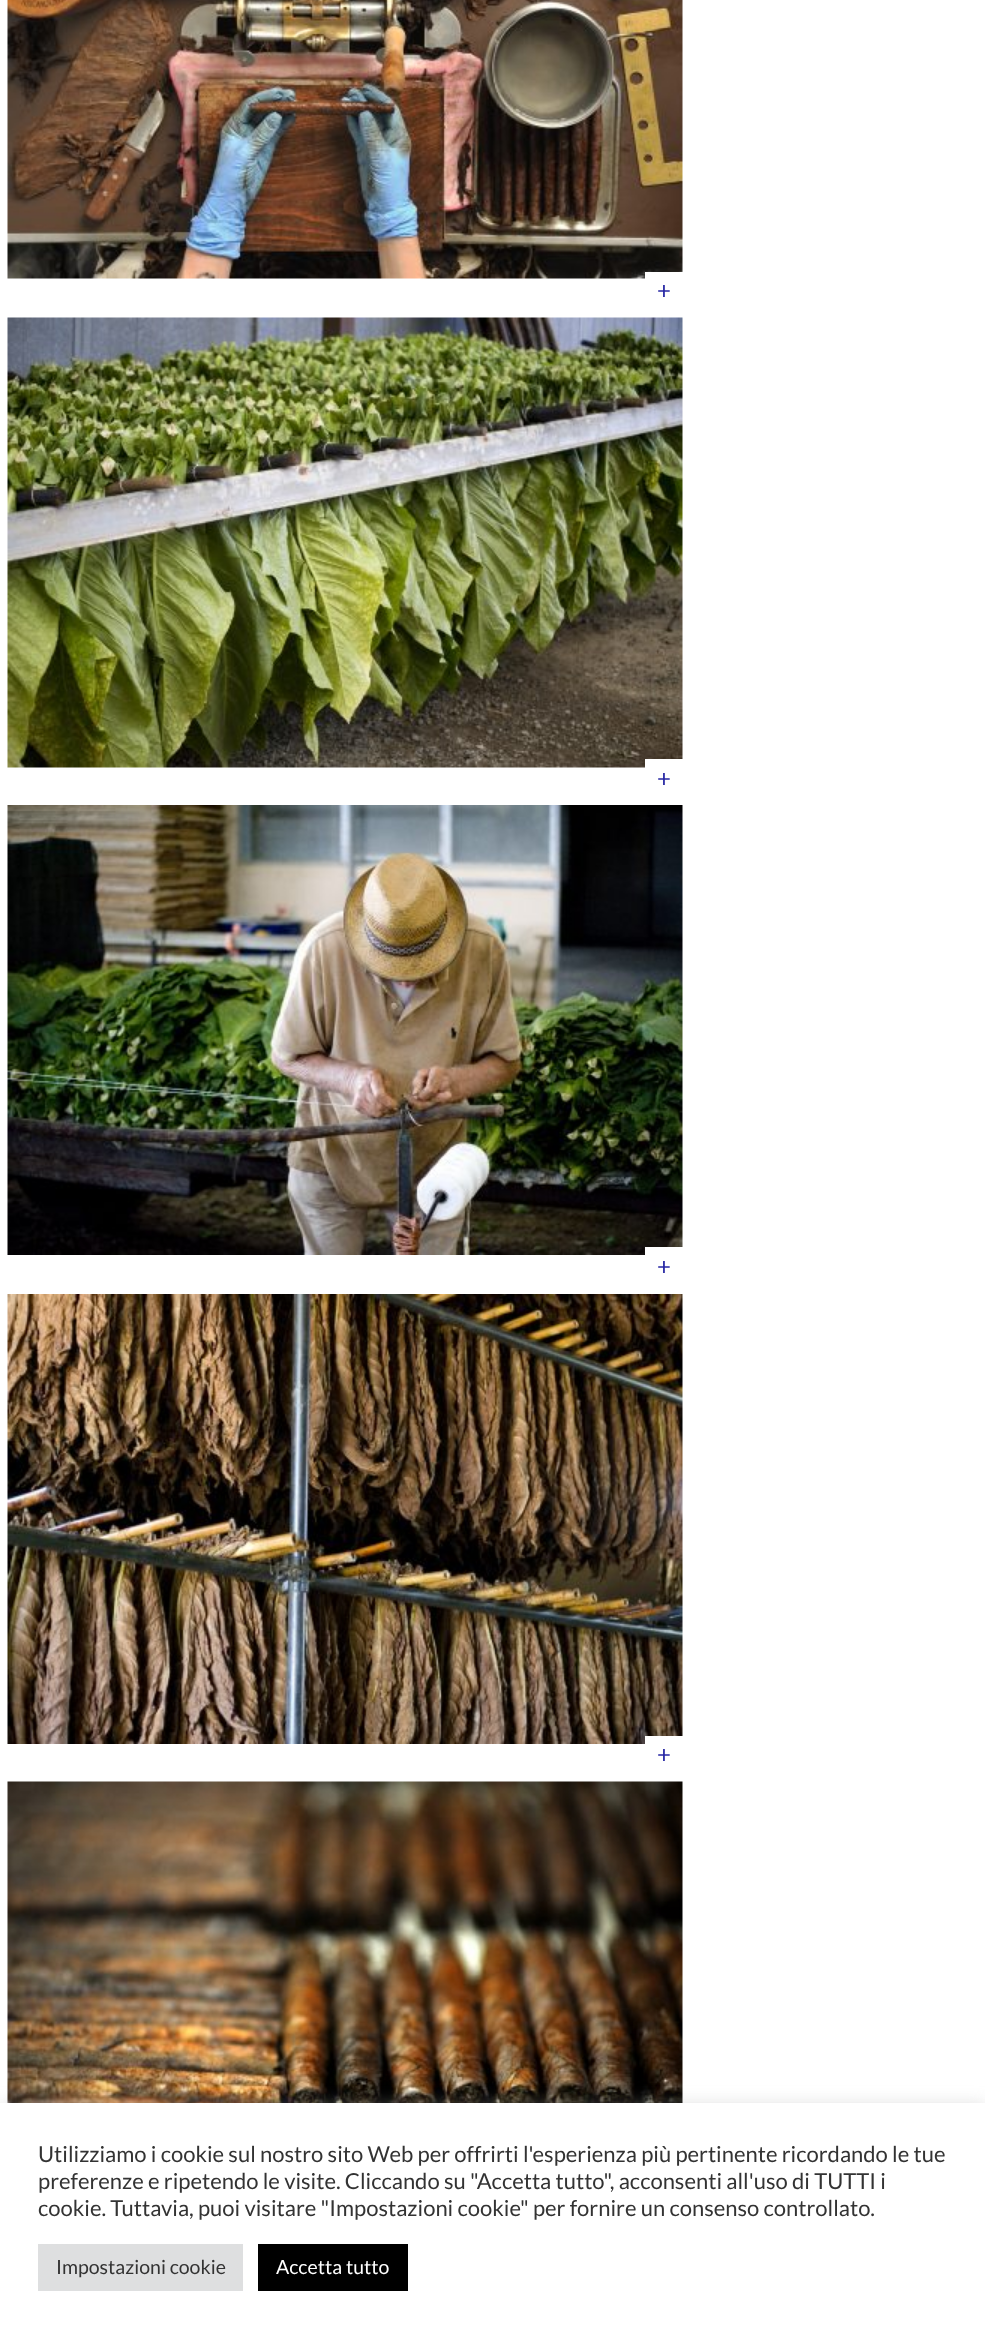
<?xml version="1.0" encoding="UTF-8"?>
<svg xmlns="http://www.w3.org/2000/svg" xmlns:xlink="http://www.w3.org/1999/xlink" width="985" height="2335">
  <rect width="100%" height="100%" fill="#ffffff" />
  <image x="7" y="0" width="676" height="279" xlink:href="image1.png" />
  <rect x="645" y="272" width="38" height="7" fill="#ffffff" />
  <image x="7" y="317" width="676" height="451" xlink:href="image2.png" />
  <rect x="645" y="759" width="38" height="9" fill="#ffffff" />
  <image x="7" y="805" width="676" height="450" xlink:href="image3.png" />
  <rect x="645" y="1247" width="38" height="8" fill="#ffffff" />
  <image x="7" y="1294" width="676" height="450" xlink:href="image4.png" />
  <rect x="645" y="1736" width="38" height="8" fill="#ffffff" />
  <image x="7" y="1781" width="676" height="322" xlink:href="image5.png" />
  <rect y="2102" width="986" height="232" fill="#acabab" fill-opacity="0.3" filter="blur(7.5px)" />
  <rect y="2103" width="985" height="232" fill="#ffffff" />
  <rect x="38" y="2244" width="205" height="47" fill="#dedfe0" />
  <rect x="258" y="2244" width="150" height="47" fill="#000000" />
  <text x="657" y="299" style="font-family: Lato; font-size: 24px; fill: #2727a4">+</text>
  <text x="657" y="787" style="font-family: Lato; font-size: 24px; fill: #2727a4">+</text>
  <text x="657" y="1275" style="font-family: Lato; font-size: 24px; fill: #2727a4">+</text>
  <text x="657" y="1763" style="font-family: Lato; font-size: 24px; fill: #2727a4">+</text>
  <text x="38" y="2162" style="font-family: Lato; font-size: 22px; fill: #333333">Utilizziamo i cookie sul nostro sito Web per offrirti l'esperienza più pertinente ricordando le tue</text>
  <text x="38" y="2189" style="font-family: Lato; font-size: 22px; fill: #333333">preferenze e ripetendo le visite. Cliccando su "Accetta tutto", acconsenti all'uso di TUTTI i</text>
  <text x="38" y="2216" style="font-family: Lato; font-size: 22px; fill: #333333">cookie. Tuttavia, puoi visitare "Impostazioni cookie" per fornire un consenso controllato.</text>
  <text x="56" y="2274" style="font-family: Lato; font-size: 19.5px; fill: #333333">Impostazioni cookie</text>
  <text x="276" y="2274" style="font-family: Lato; font-size: 19.5px; fill: #ffffff">Accetta tutto</text>
</svg>
